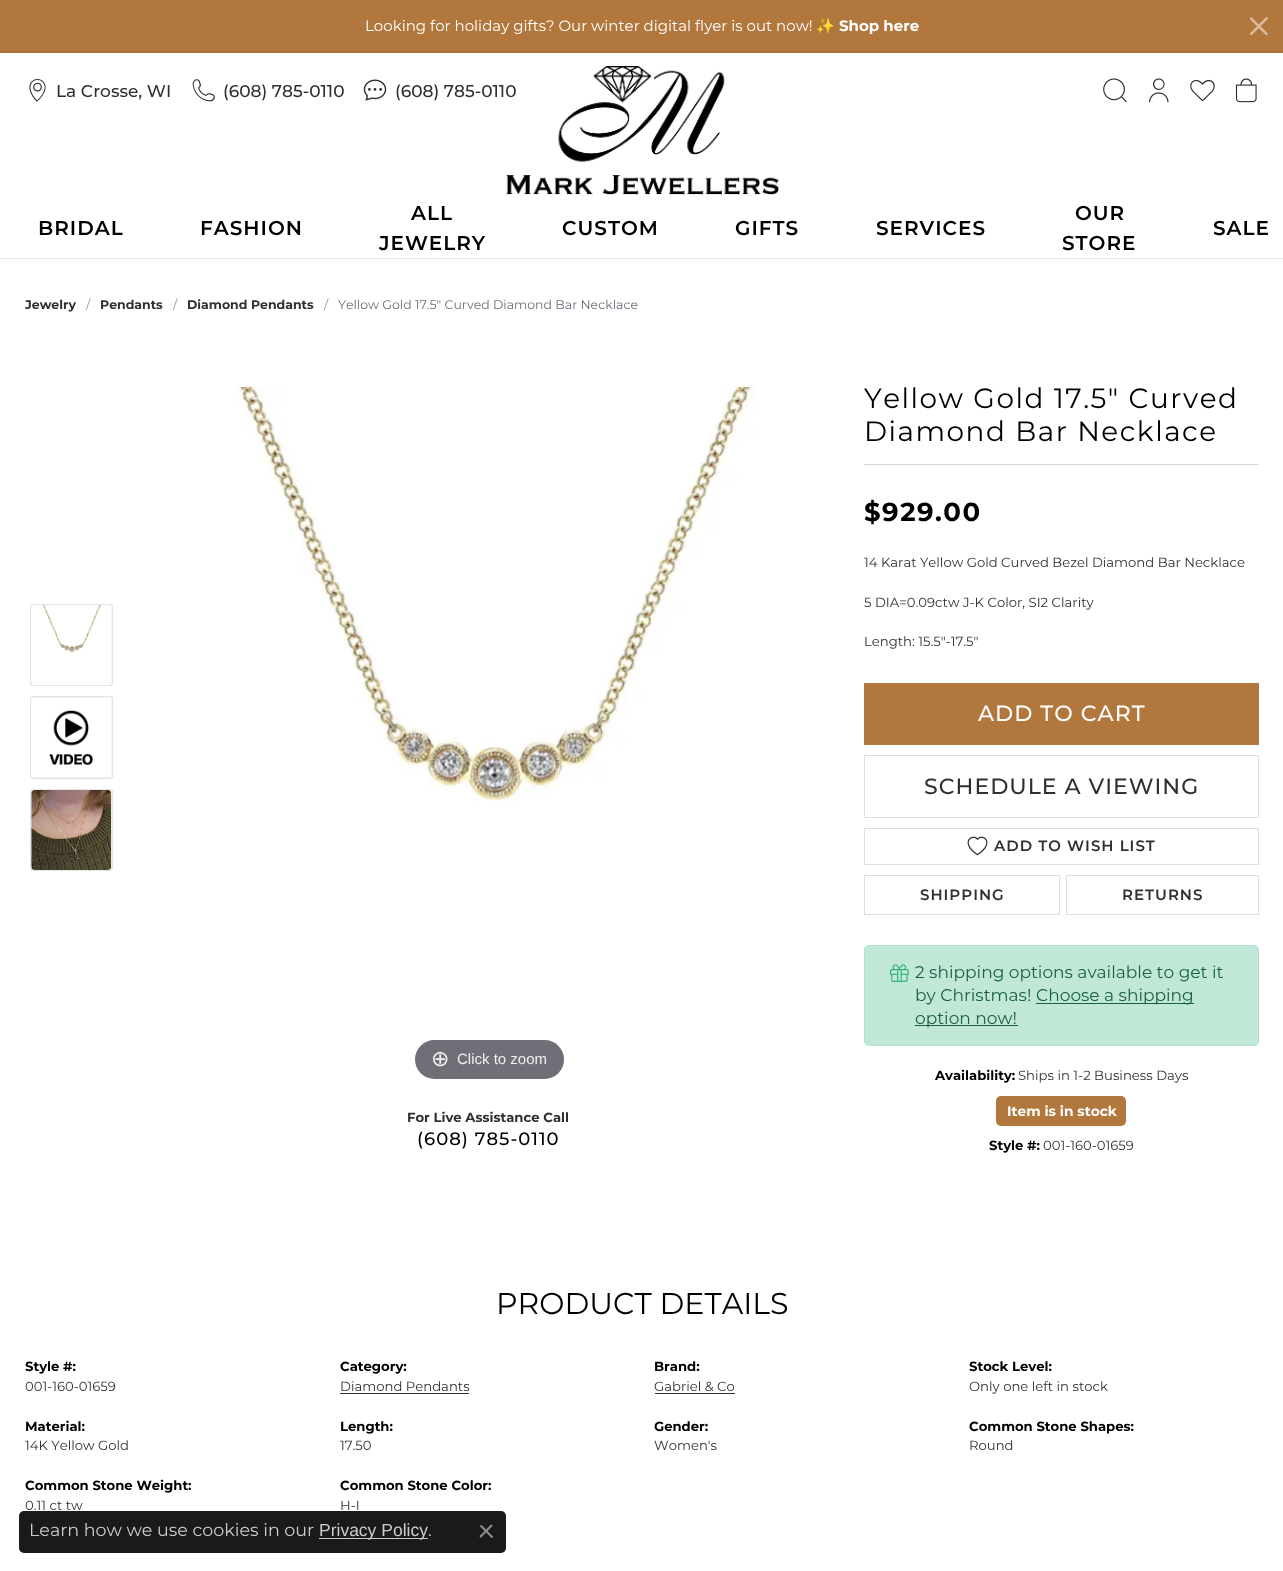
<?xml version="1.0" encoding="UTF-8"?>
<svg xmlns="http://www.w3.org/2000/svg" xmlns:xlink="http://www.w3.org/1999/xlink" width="1283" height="1571">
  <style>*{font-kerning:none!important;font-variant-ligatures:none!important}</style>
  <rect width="100%" height="100%" fill="#ffffff" />
  <rect width="1283" height="53" fill="#b2773c" />
  <image x="1249" y="16" width="20" height="20" xlink:href="image1.png" />
  <rect x="-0.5" y="51.5" width="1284" height="207" fill="none" stroke="#000000" stroke-opacity="0.1" />
  <image x="29" y="79" width="17" height="23" xlink:href="image2.png" />
  <image x="192" y="79" width="23" height="23" xlink:href="image3.png" />
  <image x="363" y="79" width="24" height="22" xlink:href="image4.png" />
  <image x="1103" y="78" width="24" height="24" xlink:href="image5.png" />
  <image x="1149" y="78" width="20" height="25" xlink:href="image6.png" />
  <image x="1190" y="79" width="25" height="23" xlink:href="image7.png" />
  <image x="1235" y="78" width="22" height="25" xlink:href="image8.png" />
  <image x="506" y="66" width="274" height="129" xlink:href="image9.png" />
  <rect x="30" y="604" width="83" height="82" rx="2.5" fill="#f3f3f2" />
  <rect x="30.5" y="604.5" width="82" height="81" rx="2" fill="none" stroke="#2e3035" stroke-opacity="0.07" />
  <image x="31" y="605" width="80" height="80" xlink:href="image10.png" />
  <rect x="30" y="696" width="83" height="83" rx="2.5" fill="#f3f3f2" />
  <rect x="30.5" y="696.5" width="82" height="82" rx="2" fill="none" stroke="#2e3035" stroke-opacity="0.07" />
  <image x="31" y="698" width="80" height="79" xlink:href="image11.png" />
  <rect x="30" y="789" width="83" height="82" rx="2.5" fill="#f3f3f2" />
  <rect x="30.5" y="789.5" width="82" height="81" rx="2" fill="none" stroke="#2e3035" stroke-opacity="0.07" />
  <image x="31" y="790" width="81" height="80" xlink:href="image12.png" />
  <image x="237" y="387" width="520" height="415" xlink:href="image13.png" />
  <rect x="415" y="1040" width="149" height="39" rx="19.5" fill="#6f7077" />
  <rect x="864" y="464" width="395" height="1" fill="#dbdad9" />
  <rect x="864" y="683" width="395" height="62" fill="#b2773c" />
  <rect x="864.5" y="755.5" width="394" height="62" fill="none" stroke="#e0dfdd" />
  <rect x="864.5" y="828.5" width="394" height="36" fill="none" stroke="#e0dfdd" />
  <image x="967" y="836" width="21" height="20" xlink:href="image14.png" />
  <rect x="864.5" y="875.5" width="195" height="39" fill="none" stroke="#e0dfdd" />
  <rect x="1066.5" y="875.5" width="192" height="39" fill="none" stroke="#e0dfdd" />
  <rect x="864" y="945" width="395" height="101" rx="5" fill="#c1e8d7" />
  <rect x="864.5" y="945.5" width="394" height="100" rx="4.5" fill="none" stroke="#30b178" stroke-opacity="0.1" />
  <image x="890" y="964" width="19" height="18" xlink:href="image15.png" />
  <rect x="1036" y="1003" width="158" height="1" fill="#1a6142" />
  <rect x="915" y="1025" width="103" height="1" fill="#1a6142" />
  <rect x="996" y="1096" width="130" height="30" rx="5" fill="#b2773c" />
  <rect x="340" y="1393" width="129" height="1" fill="#2e3035" />
  <rect x="655" y="1393" width="80" height="1" fill="#2e3035" />
  <rect x="19" y="1511" width="487" height="42" rx="5" fill="#1a1a1a" />
  <rect x="319" y="1538" width="109" height="1" fill="#cccccc" />
  <image x="479" y="1524" width="14" height="14" xlink:href="image16.png" />
  <text x="365" y="31" style="font-family: Montserrat; font-size: 15px; fill: #ffffff">Looking for holiday gifts? Our winter digital flyer is out now!</text>
  <text x="816" y="31" style="font-family: Noto Color Emoji; font-size: 15px; fill: #ffffff">✨</text>
  <text x="839" y="31" style="font-family: Montserrat; font-size: 15px; font-weight: bold; fill: #ffffff">Shop here</text>
  <text x="56" y="97" style="font-family: Montserrat; font-size: 17px; font-weight: 500; fill: #2e3035">La Crosse, WI</text>
  <text x="223" y="97" style="font-family: Montserrat; font-size: 17px; font-weight: 500; fill: #2e3035">(608) 785-0110</text>
  <text x="395" y="97" style="font-family: Montserrat; font-size: 17px; font-weight: 500; fill: #2e3035">(608) 785-0110</text>
  <text x="38" y="235" style="font-family: Montserrat; font-size: 20px; font-weight: 600; letter-spacing: 1px; fill: #000000">BRIDAL</text>
  <text x="200" y="235" style="font-family: Montserrat; font-size: 20px; font-weight: 600; letter-spacing: 1px; fill: #000000">FASHION</text>
  <text x="411" y="220" style="font-family: Montserrat; font-size: 20px; font-weight: 600; letter-spacing: 1px; fill: #000000">ALL</text>
  <text x="379" y="250" style="font-family: Montserrat; font-size: 20px; font-weight: 600; letter-spacing: 1px; fill: #000000">JEWELRY</text>
  <text x="562" y="235" style="font-family: Montserrat; font-size: 20px; font-weight: 600; letter-spacing: 1px; fill: #000000">CUSTOM</text>
  <text x="735" y="235" style="font-family: Montserrat; font-size: 20px; font-weight: 600; letter-spacing: 1px; fill: #000000">GIFTS</text>
  <text x="876" y="235" style="font-family: Montserrat; font-size: 20px; font-weight: 600; letter-spacing: 1px; fill: #000000">SERVICES</text>
  <text x="1075" y="220" style="font-family: Montserrat; font-size: 20px; font-weight: 600; letter-spacing: 1px; fill: #000000">OUR</text>
  <text x="1062" y="250" style="font-family: Montserrat; font-size: 20px; font-weight: 600; letter-spacing: 1px; fill: #000000">STORE</text>
  <text x="1213" y="235" style="font-family: Montserrat; font-size: 20px; font-weight: 600; letter-spacing: 1px; fill: #000000">SALE</text>
  <text x="25" y="309" style="font-family: Montserrat; font-size: 12.5px; font-weight: bold; fill: #2e3035">Jewelry</text>
  <text x="86" y="309" style="font-family: Montserrat; font-size: 12.5px; fill: #96928d">/</text>
  <text x="100" y="309" style="font-family: Montserrat; font-size: 12.5px; font-weight: bold; fill: #2e3035">Pendants</text>
  <text x="173" y="309" style="font-family: Montserrat; font-size: 12.5px; fill: #96928d">/</text>
  <text x="187" y="309" style="font-family: Montserrat; font-size: 12.5px; font-weight: bold; fill: #2e3035">Diamond Pendants</text>
  <text x="324" y="309" style="font-family: Montserrat; font-size: 12.5px; fill: #96928d">/</text>
  <text x="338" y="309" style="font-family: Montserrat; font-size: 12.5px; fill: #696e79">Yellow Gold 17.5" Curved Diamond Bar Necklace</text>
  <text x="431" y="1066" style="font-family: DejaVu Sans; font-size: 22px; fill: #eeeeee">⊕</text>
  <text x="457" y="1064" style="font-family: Liberation Sans; font-size: 15px; fill: #eeeeee">Click to zoom</text>
  <text x="407" y="1122" style="font-family: Montserrat; font-size: 13.2px; font-weight: bold; fill: #2e3035">For Live Assistance Call</text>
  <text x="417" y="1145" style="font-family: Montserrat; font-size: 18px; font-weight: 500; letter-spacing: 1px; fill: #000000">(608) 785-0110</text>
  <text x="864" y="408" style="font-family: Montserrat; font-size: 27.9px; letter-spacing: 1.5px; fill: #000000">Yellow Gold 17.5" Curved</text>
  <text x="864" y="441" style="font-family: Montserrat; font-size: 27.9px; letter-spacing: 1.5px; fill: #000000">Diamond Bar Necklace</text>
  <text x="864" y="521" style="font-family: Montserrat; font-size: 26px; font-weight: bold; letter-spacing: 1.5px; fill: #000000">$929.00</text>
  <text x="864" y="567" style="font-family: Montserrat; font-size: 13.2px; fill: #2e3035">14 Karat Yellow Gold Curved Bezel Diamond Bar Necklace</text>
  <text x="864" y="607" style="font-family: Montserrat; font-size: 13.2px; fill: #2e3035">5 DIA=0.09ctw J-K Color, SI2 Clarity</text>
  <text x="864" y="646" style="font-family: Montserrat; font-size: 13.2px; fill: #2e3035">Length: 15.5"-17.5"</text>
  <text x="978" y="721" style="font-family: Montserrat; font-size: 22px; font-weight: 500; letter-spacing: 1px; fill: #ffffff">ADD TO CART</text>
  <text x="924" y="794" style="font-family: Montserrat; font-size: 22px; font-weight: 500; letter-spacing: 1px; fill: #2e3035">SCHEDULE A VIEWING</text>
  <text x="994" y="851" style="font-family: Montserrat; font-size: 15px; font-weight: 600; letter-spacing: 1px; fill: #2e3035">ADD TO WISH LIST</text>
  <text x="920" y="900" style="font-family: Montserrat; font-size: 15px; font-weight: 600; letter-spacing: 1px; fill: #2e3035">SHIPPING</text>
  <text x="1122" y="900" style="font-family: Montserrat; font-size: 15px; font-weight: 600; letter-spacing: 1px; fill: #2e3035">RETURNS</text>
  <text x="915" y="978" style="font-family: Montserrat; font-size: 17px; fill: #1a6142">2 shipping options available to get it</text>
  <text x="915" y="1001" style="font-family: Montserrat; font-size: 17px; fill: #1a6142">by Christmas!</text>
  <text x="1036" y="1001" style="font-family: Montserrat; font-size: 17px; fill: #1a6142">Choose a shipping</text>
  <text x="915" y="1024" style="font-family: Montserrat; font-size: 17px; fill: #1a6142">option now!</text>
  <text x="935" y="1080" style="font-family: Montserrat; font-size: 13.2px; font-weight: bold; fill: #000000">Availability:</text>
  <text x="1018" y="1080" style="font-family: Montserrat; font-size: 13.2px; fill: #2e3035">Ships in 1-2 Business Days</text>
  <text x="1007" y="1116" style="font-family: Montserrat; font-size: 13.75px; font-weight: bold; fill: #ffffff">Item is in stock</text>
  <text x="989" y="1150" style="font-family: Montserrat; font-size: 13.2px; font-weight: bold; fill: #000000">Style #:</text>
  <text x="1043" y="1150" style="font-family: Montserrat; font-size: 13.2px; fill: #2e3035">001-160-01659</text>
  <text x="496" y="1314" style="font-family: Montserrat; font-size: 30px; fill: #000000">PRODUCT DETAILS</text>
  <text x="25" y="1371" style="font-family: Montserrat; font-size: 13.2px; font-weight: bold; fill: #000000">Style #:</text>
  <text x="25" y="1391" style="font-family: Montserrat; font-size: 13.2px; fill: #2e3035">001-160-01659</text>
  <text x="25" y="1431" style="font-family: Montserrat; font-size: 13.2px; font-weight: bold; fill: #000000">Material:</text>
  <text x="25" y="1450" style="font-family: Montserrat; font-size: 13.2px; fill: #2e3035">14K Yellow Gold</text>
  <text x="25" y="1490" style="font-family: Montserrat; font-size: 13.2px; font-weight: bold; fill: #000000">Common Stone Weight:</text>
  <text x="25" y="1510" style="font-family: Montserrat; font-size: 13.2px; fill: #2e3035">0.11 ct tw</text>
  <text x="340" y="1371" style="font-family: Montserrat; font-size: 13.2px; font-weight: bold; fill: #000000">Category:</text>
  <text x="340" y="1391" style="font-family: Montserrat; font-size: 13.2px; fill: #2e3035">Diamond Pendants</text>
  <text x="340" y="1431" style="font-family: Montserrat; font-size: 13.2px; font-weight: bold; fill: #000000">Length:</text>
  <text x="340" y="1450" style="font-family: Montserrat; font-size: 13.2px; fill: #2e3035">17.50</text>
  <text x="340" y="1490" style="font-family: Montserrat; font-size: 13.2px; font-weight: bold; fill: #000000">Common Stone Color:</text>
  <text x="340" y="1510" style="font-family: Montserrat; font-size: 13.2px; fill: #2e3035">H-I</text>
  <text x="654" y="1371" style="font-family: Montserrat; font-size: 13.2px; font-weight: bold; fill: #000000">Brand:</text>
  <text x="654" y="1391" style="font-family: Montserrat; font-size: 13.2px; fill: #2e3035">Gabriel &amp; Co</text>
  <text x="654" y="1431" style="font-family: Montserrat; font-size: 13.2px; font-weight: bold; fill: #000000">Gender:</text>
  <text x="654" y="1450" style="font-family: Montserrat; font-size: 13.2px; fill: #2e3035">Women's</text>
  <text x="969" y="1371" style="font-family: Montserrat; font-size: 13.2px; font-weight: bold; fill: #000000">Stock Level:</text>
  <text x="969" y="1391" style="font-family: Montserrat; font-size: 13.2px; fill: #2e3035">Only one left in stock</text>
  <text x="969" y="1431" style="font-family: Montserrat; font-size: 13.2px; font-weight: bold; fill: #000000">Common Stone Shapes:</text>
  <text x="969" y="1450" style="font-family: Montserrat; font-size: 13.2px; fill: #2e3035">Round</text>
  <text x="29" y="1536" style="font-family: Montserrat; font-size: 17.5px; fill: #cccccc">Learn how we use cookies in our</text>
  <text x="319" y="1536" style="font-family: Liberation Sans; font-size: 17.5px; fill: #cccccc">Privacy Policy</text>
  <text x="428" y="1536" style="font-family: Montserrat; font-size: 17.5px; fill: #cccccc">.</text>
</svg>
